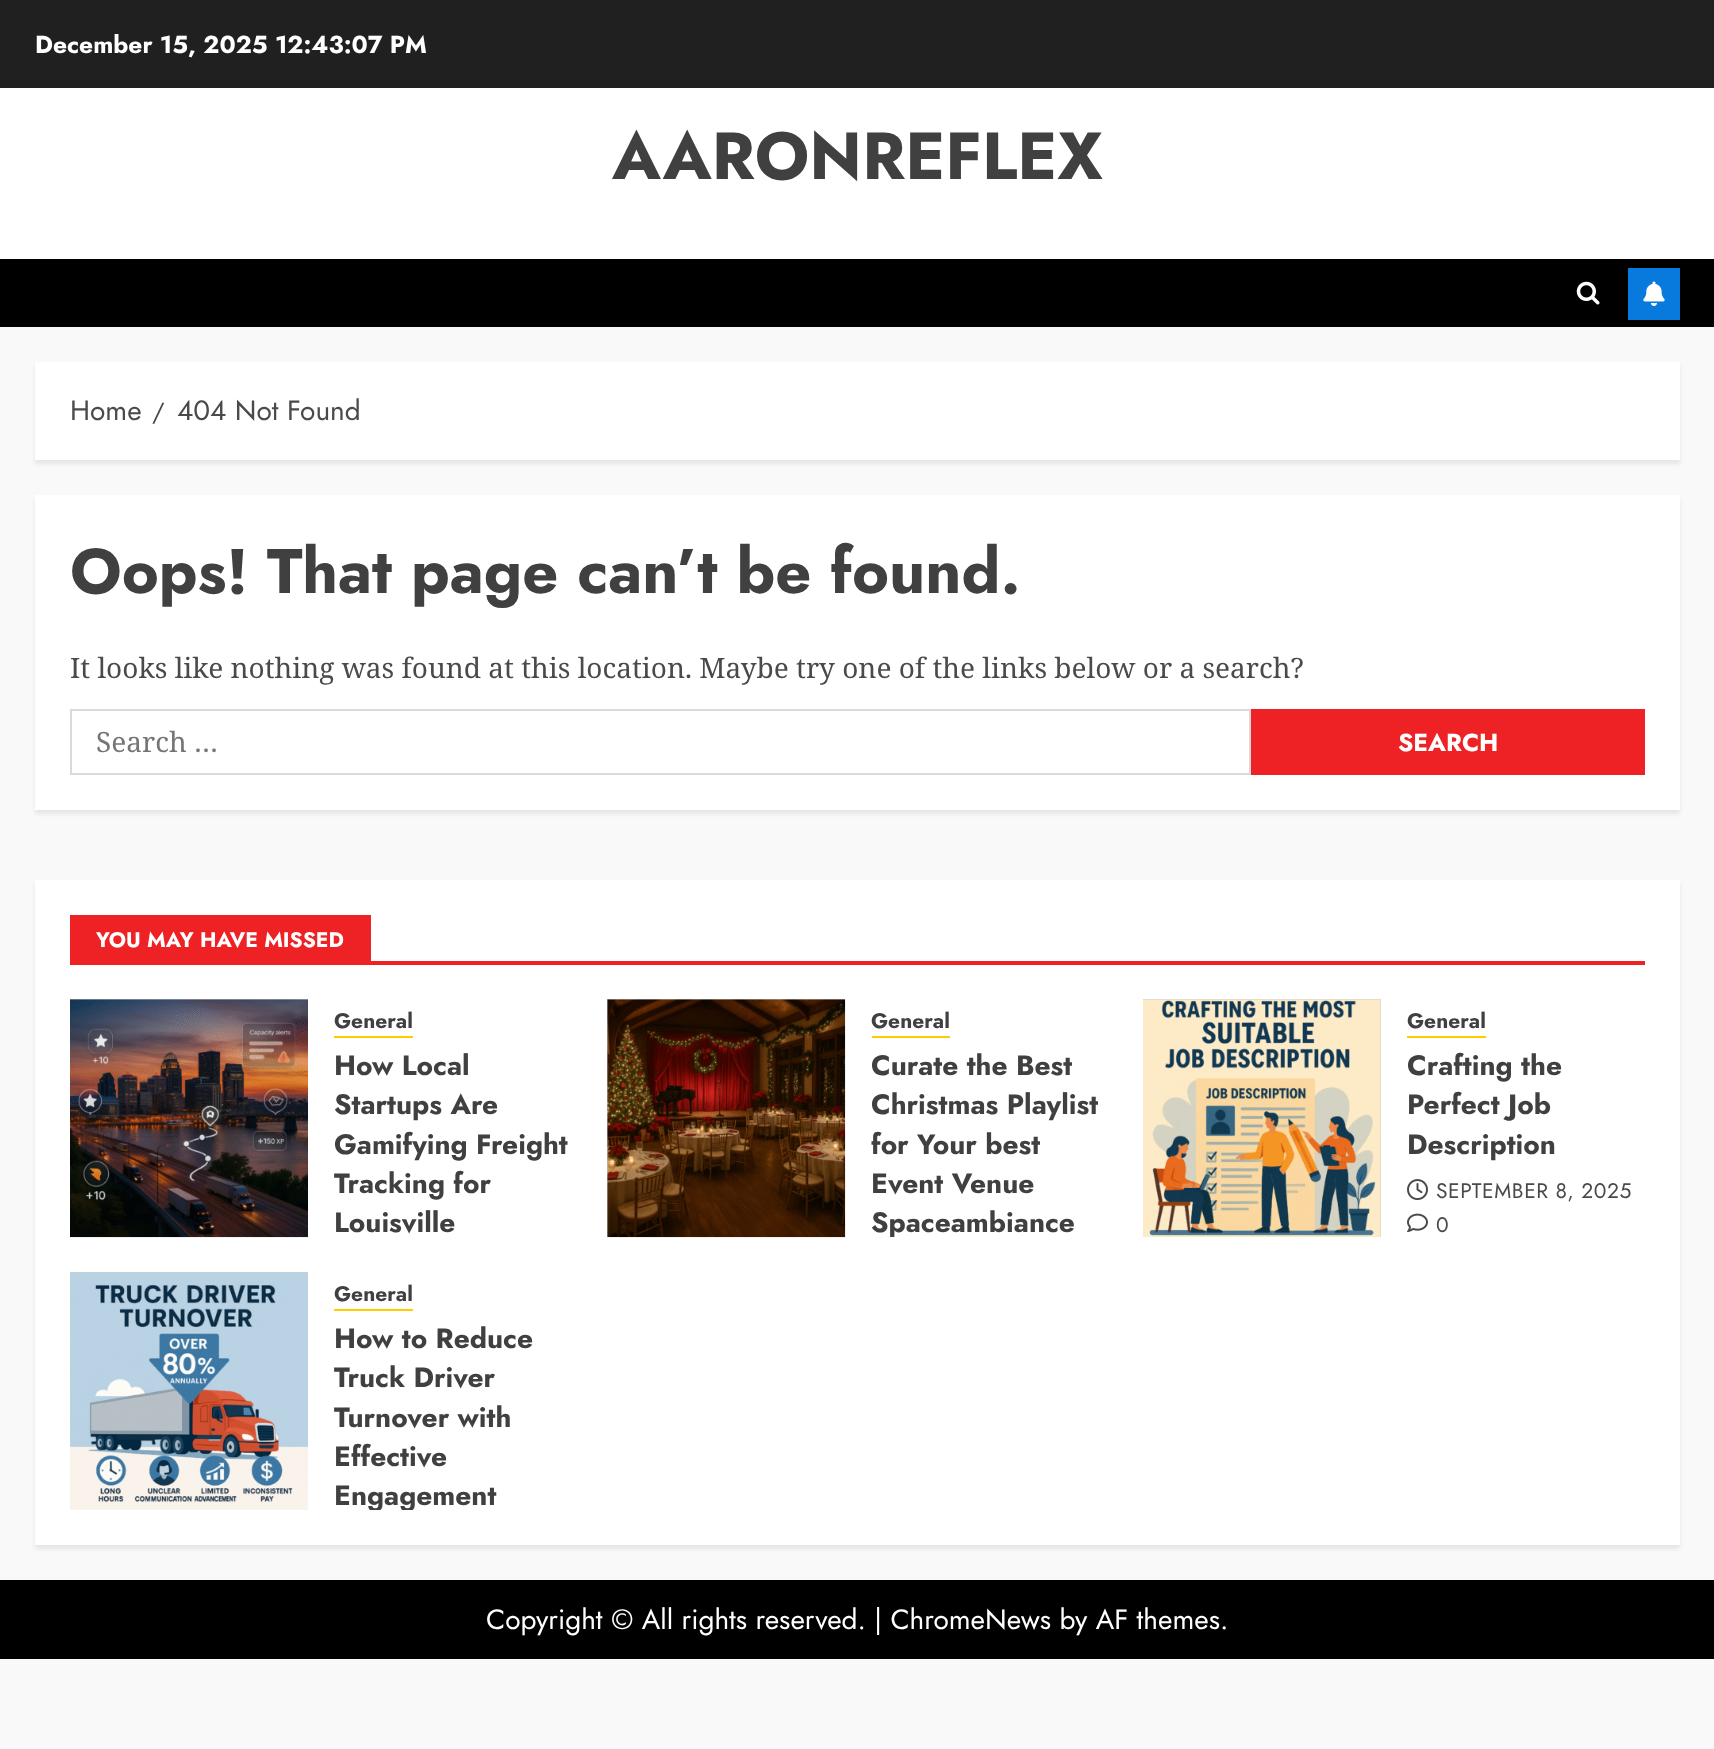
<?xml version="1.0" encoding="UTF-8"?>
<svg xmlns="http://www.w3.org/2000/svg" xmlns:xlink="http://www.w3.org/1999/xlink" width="1714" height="1749">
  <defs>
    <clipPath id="clip1"><rect x="845" y="999" width="263" height="238" /></clipPath>
    <clipPath id="clip2"><rect x="308" y="1272" width="264" height="238" /></clipPath>
  </defs>
  <rect width="100%" height="100%" fill="#f9f9f9" />
  <rect width="1714" height="88" fill="#202020" />
  <rect y="88" width="1714" height="171" fill="#ffffff" />
  <rect y="259" width="1714" height="68" fill="#000000" />
  <image x="1576" y="281" width="24" height="24" xlink:href="image1.png" />
  <rect x="1628" y="268" width="52" height="52" fill="#087add" />
  <image x="1643" y="281" width="22" height="25" xlink:href="image2.png" />
  <rect x="35" y="366" width="1645" height="98" fill="#000000" fill-opacity="0.08" filter="blur(2px)" />
  <rect x="35" y="362" width="1645" height="98" fill="#ffffff" />
  <rect x="35" y="499" width="1645" height="315" fill="#000000" fill-opacity="0.08" filter="blur(2px)" />
  <rect x="35" y="495" width="1645" height="315" fill="#ffffff" />
  <rect x="71" y="710" width="1179" height="64" fill="none" stroke="#d9d9d9" stroke-width="2" />
  <rect x="1251" y="709" width="394" height="66" fill="#ee2224" />
  <rect x="35" y="884" width="1645" height="665" fill="#000000" fill-opacity="0.08" filter="blur(2px)" />
  <rect x="35" y="880" width="1645" height="665" fill="#ffffff" />
  <rect x="70" y="915" width="301" height="46" fill="#ee2224" />
  <rect x="70" y="961" width="1575" height="4" fill="#ee2224" />
  <rect x="70" y="999" width="238" height="1" fill="#cccccc" />
  <image x="70" y="999" width="238" height="239" xlink:href="image3.png" />
  <rect x="334" y="1036" width="79" height="2" fill="#ffcc00" />
  <rect x="607" y="999" width="238" height="238" fill="#cccccc" />
  <image x="607" y="999" width="239" height="239" xlink:href="image4.png" />
  <rect x="872" y="1036" width="78" height="2" fill="#ffcc00" />
  <rect x="1143" y="999" width="238" height="238" fill="#cccccc" />
  <image x="1143" y="999" width="238" height="239" xlink:href="image5.png" />
  <rect x="1407" y="1036" width="79" height="2" fill="#ffcc00" />
  <image x="1407" y="1179" width="21" height="22" xlink:href="image6.png" />
  <image x="1407" y="1213" width="21" height="19" xlink:href="image7.png" />
  <rect x="70" y="1272" width="238" height="1" fill="#cccccc" />
  <image x="70" y="1272" width="238" height="238" xlink:href="image8.png" />
  <rect x="334" y="1309" width="79" height="2" fill="#ffcc00" />
  <rect y="1580" width="1714" height="79" fill="#000000" />
  <text x="35" y="53" style="font-family: Jost; font-size: 24.5px; font-weight: bold; fill: #ffffff">December 15, 2025 12:43:07 PM</text>
  <text x="612" y="179" style="font-family: Jost; font-size: 66.5px; font-weight: bold; fill: #404040">AARONREFLEX</text>
  <text x="70" y="420" style="font-family: Jost; font-size: 28px; fill: #4a4a4a">Home</text>
  <text x="152" y="420" style="font-family: Jost; font-size: 24.5px; fill: #4a4a4a">/</text>
  <text x="177" y="420" style="font-family: Jost; font-size: 28px; fill: #4a4a4a">404 Not Found</text>
  <text x="70" y="593" style="font-family: Jost; font-size: 63px; font-weight: bold; fill: #404040">Oops! That page can’t be found.</text>
  <text x="70" y="678" style="font-family: Noto Serif; font-size: 28px; fill: #4a4a4a">It looks like nothing was found at this location. Maybe try one of the links below or a search?</text>
  <text x="96" y="752" style="font-family: Noto Serif; font-size: 28px; fill: #757575">Search …</text>
  <text x="1398" y="751" style="font-family: Jost; font-size: 24.5px; font-weight: bold; fill: #ffffff">SEARCH</text>
  <text x="96" y="947" style="font-family: Jost; font-size: 21px; font-weight: bold; fill: #ffffff">YOU MAY HAVE MISSED</text>
  <text x="334" y="1028" style="font-family: Jost; font-size: 21px; font-weight: bold; fill: #404040">General</text>
  <text x="334" y="1075" style="font-family: Jost; font-size: 28px; font-weight: bold; fill: #404040">How Local</text>
  <text x="334" y="1114" style="font-family: Jost; font-size: 28px; font-weight: bold; fill: #404040">Startups Are</text>
  <text x="334" y="1154" style="font-family: Jost; font-size: 28px; font-weight: bold; fill: #404040">Gamifying Freight</text>
  <text x="334" y="1193" style="font-family: Jost; font-size: 28px; font-weight: bold; fill: #404040">Tracking for</text>
  <text x="334" y="1232" style="font-family: Jost; font-size: 28px; font-weight: bold; fill: #404040">Louisville</text>
  <text x="871" y="1028" style="font-family: Jost; font-size: 21px; font-weight: bold; fill: #404040">General</text>
  <text x="871" y="1075" style="font-family: Jost; font-size: 28px; font-weight: bold; fill: #404040">Curate the Best</text>
  <text x="871" y="1114" style="font-family: Jost; font-size: 28px; font-weight: bold; fill: #404040">Christmas Playlist</text>
  <text x="871" y="1154" style="font-family: Jost; font-size: 28px; font-weight: bold; fill: #404040">for Your best</text>
  <text x="871" y="1193" style="font-family: Jost; font-size: 28px; font-weight: bold; fill: #404040">Event Venue</text>
  <g clip-path="url(#clip1)">
    <text x="871" y="1232" style="font-family: Jost; font-size: 28px; font-weight: bold; fill: #404040">Spaceambiance</text>
  </g>
  <text x="1407" y="1028" style="font-family: Jost; font-size: 21px; font-weight: bold; fill: #404040">General</text>
  <text x="1407" y="1075" style="font-family: Jost; font-size: 28px; font-weight: bold; fill: #404040">Crafting the</text>
  <text x="1407" y="1114" style="font-family: Jost; font-size: 28px; font-weight: bold; fill: #404040">Perfect Job</text>
  <text x="1407" y="1154" style="font-family: Jost; font-size: 28px; font-weight: bold; fill: #404040">Description</text>
  <text x="1436" y="1198" style="font-family: Jost; font-size: 21px; letter-spacing: 0.6px; fill: #4a4a4a">SEPTEMBER 8, 2025</text>
  <text x="1436" y="1232" style="font-family: Jost; font-size: 21px; letter-spacing: 0.6px; fill: #4a4a4a">0</text>
  <text x="334" y="1301" style="font-family: Jost; font-size: 21px; font-weight: bold; fill: #404040">General</text>
  <text x="334" y="1348" style="font-family: Jost; font-size: 28px; font-weight: bold; fill: #404040">How to Reduce</text>
  <text x="334" y="1387" style="font-family: Jost; font-size: 28px; font-weight: bold; fill: #404040">Truck Driver</text>
  <text x="334" y="1427" style="font-family: Jost; font-size: 28px; font-weight: bold; fill: #404040">Turnover with</text>
  <text x="334" y="1466" style="font-family: Jost; font-size: 28px; font-weight: bold; fill: #404040">Effective</text>
  <g clip-path="url(#clip2)">
    <text x="334" y="1505" style="font-family: Jost; font-size: 28px; font-weight: bold; fill: #404040">Engagement</text>
  </g>
  <text x="486" y="1629" style="font-family: Jost; font-size: 28px; fill: #ffffff">Copyright © All rights reserved. | ChromeNews by AF themes.</text>
</svg>
